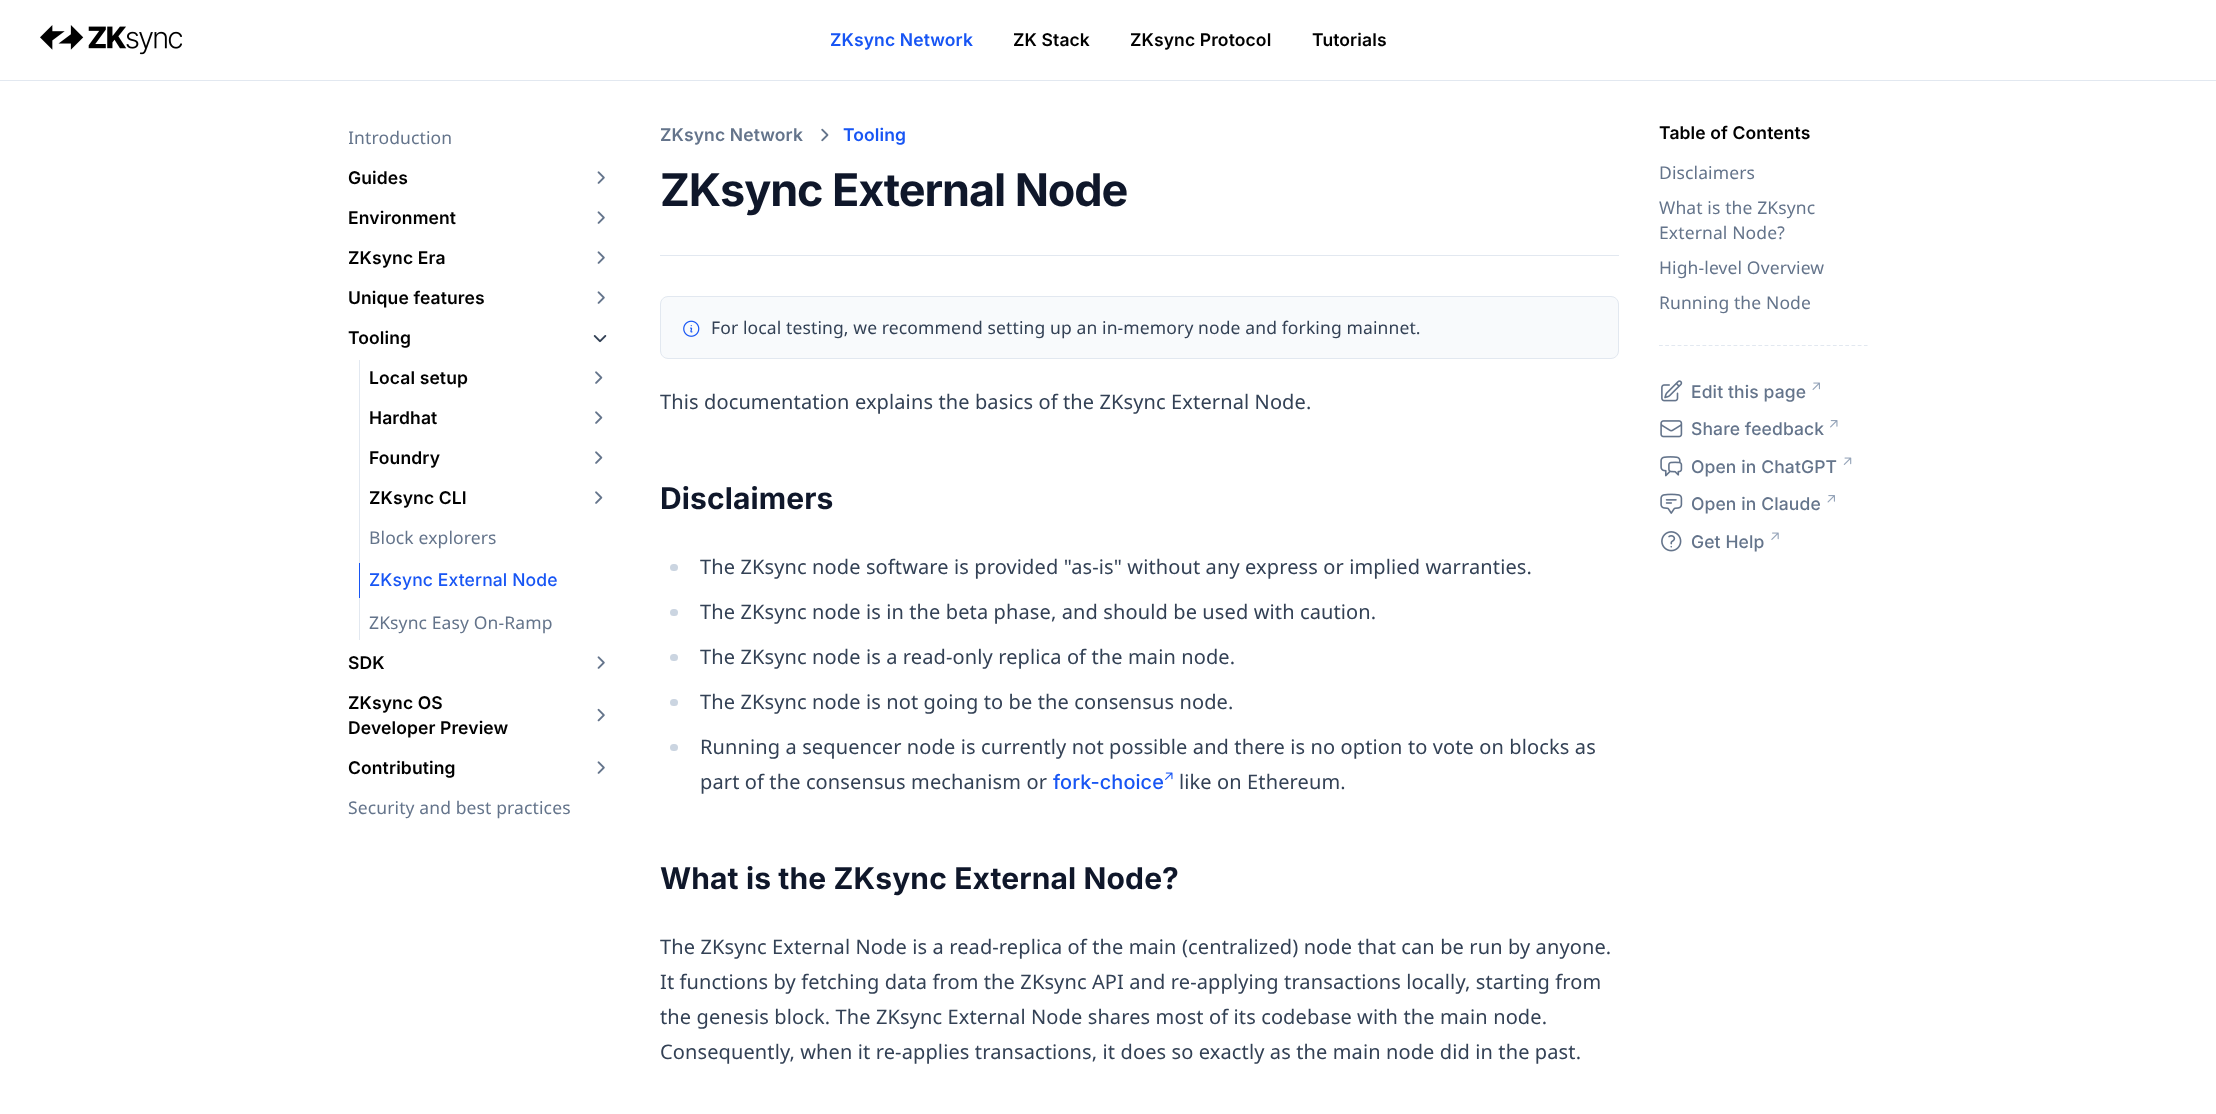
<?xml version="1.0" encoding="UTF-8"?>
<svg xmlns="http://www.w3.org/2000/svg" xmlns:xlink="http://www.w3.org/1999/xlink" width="2216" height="1114">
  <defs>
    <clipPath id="clip1"><rect x="349" y="125" width="104" height="25" /></clipPath>
  </defs>
  <rect width="100%" height="100%" fill="#ffffff" />
  <rect y="80" width="2216" height="1" fill="#e2e8f0" />
  <image x="40" y="25" width="142" height="30" xlink:href="image1.png" />
  <image x="597" y="171" width="8" height="13" xlink:href="image2.png" />
  <image x="597" y="211" width="8" height="13" xlink:href="image2.png" />
  <image x="597" y="251" width="8" height="13" xlink:href="image2.png" />
  <image x="597" y="291" width="8" height="13" xlink:href="image2.png" />
  <image x="593" y="335" width="14" height="8" xlink:href="image3.png" />
  <rect x="359" y="360" width="1" height="280" fill="#e2e8f0" />
  <image x="595" y="371" width="8" height="13" xlink:href="image4.png" />
  <image x="595" y="411" width="8" height="13" xlink:href="image4.png" />
  <image x="595" y="451" width="8" height="13" xlink:href="image4.png" />
  <image x="595" y="491" width="8" height="13" xlink:href="image4.png" />
  <rect x="359" y="563" width="1" height="35" fill="#1755f4" />
  <image x="597" y="656" width="8" height="13" xlink:href="image2.png" />
  <image x="597" y="708" width="8" height="14" xlink:href="image5.png" />
  <image x="597" y="761" width="8" height="13" xlink:href="image2.png" />
  <rect x="660" y="255" width="959" height="1" fill="#e2e8f0" />
  <image x="821" y="128" width="8" height="14" xlink:href="image6.png" />
  <rect x="660.5" y="296.5" width="958" height="62" rx="7.5" fill="#f8fafc" stroke="#e2e8f0" />
  <image x="683" y="320" width="17" height="17" xlink:href="image7.png" />
  <rect x="670" y="564" width="8" height="7" rx="3.5" fill="#cbd5e1" />
  <rect x="670" y="609" width="8" height="7" rx="3.5" fill="#cbd5e1" />
  <rect x="670" y="654" width="8" height="7" rx="3.5" fill="#cbd5e1" />
  <rect x="670" y="699" width="8" height="7" rx="3.5" fill="#cbd5e1" />
  <rect x="670" y="744" width="8" height="7" rx="3.5" fill="#cbd5e1" />
  <image x="1165" y="772" width="8" height="8" xlink:href="image8.png" />
  <path d="M 1659 345.5 h 208.5" fill="none" stroke="#e2e8f0" stroke-width="1.2" stroke-dasharray="3.75 2.46" />
  <image x="1661" y="380" width="22" height="22" xlink:href="image9.png" />
  <image x="1812" y="382" width="8" height="8" xlink:href="image10.png" />
  <image x="1660" y="420" width="23" height="18" xlink:href="image11.png" />
  <image x="1830" y="420" width="8" height="8" xlink:href="image12.png" />
  <image x="1660" y="456" width="23" height="21" xlink:href="image13.png" />
  <image x="1843" y="457" width="9" height="8" xlink:href="image14.png" />
  <image x="1660" y="493" width="23" height="21" xlink:href="image15.png" />
  <image x="1827" y="495" width="8" height="8" xlink:href="image16.png" />
  <image x="1661" y="531" width="21" height="21" xlink:href="image17.png" />
  <image x="1771" y="532" width="8" height="8" xlink:href="image18.png" />
  <text x="830" y="46" style="font-family: Inter; font-size: 17.5px; font-weight: 600; letter-spacing: 0.12px; fill: #1755f4">ZKsync Network</text>
  <text x="1013" y="46" style="font-family: Inter; font-size: 17.5px; font-weight: 600; letter-spacing: 0.12px; fill: #000000">ZK Stack</text>
  <text x="1130" y="46" style="font-family: Inter; font-size: 17.5px; font-weight: 600; letter-spacing: 0.12px; fill: #000000">ZKsync Protocol</text>
  <text x="1312" y="46" style="font-family: Inter; font-size: 17.5px; font-weight: 600; letter-spacing: 0.12px; fill: #000000">Tutorials</text>
  <g clip-path="url(#clip1)">
    <text x="348" y="144" style="font-family: Noto Sans; font-size: 17.5px; letter-spacing: 0.12px; fill: #64748b">Introduction</text>
  </g>
  <text x="348" y="184" style="font-family: Inter; font-size: 17.5px; font-weight: 600; letter-spacing: 0.12px; fill: #000000">Guides</text>
  <text x="348" y="224" style="font-family: Inter; font-size: 17.5px; font-weight: 600; letter-spacing: 0.12px; fill: #000000">Environment</text>
  <text x="348" y="264" style="font-family: Inter; font-size: 17.5px; font-weight: 600; letter-spacing: 0.12px; fill: #000000">ZKsync Era</text>
  <text x="348" y="304" style="font-family: Inter; font-size: 17.5px; font-weight: 600; letter-spacing: 0.12px; fill: #000000">Unique features</text>
  <text x="348" y="344" style="font-family: Inter; font-size: 17.5px; font-weight: 600; letter-spacing: 0.12px; fill: #000000">Tooling</text>
  <text x="369" y="384" style="font-family: Inter; font-size: 17.5px; font-weight: 600; letter-spacing: 0.12px; fill: #000000">Local setup</text>
  <text x="369" y="424" style="font-family: Inter; font-size: 17.5px; font-weight: 600; letter-spacing: 0.12px; fill: #000000">Hardhat</text>
  <text x="369" y="464" style="font-family: Inter; font-size: 17.5px; font-weight: 600; letter-spacing: 0.12px; fill: #000000">Foundry</text>
  <text x="369" y="504" style="font-family: Inter; font-size: 17.5px; font-weight: 600; letter-spacing: 0.12px; fill: #000000">ZKsync CLI</text>
  <text x="369" y="544" style="font-family: Noto Sans; font-size: 17.5px; letter-spacing: 0.12px; fill: #64748b">Block explorers</text>
  <text x="369" y="586" style="font-family: Inter; font-size: 17.5px; font-weight: 500; letter-spacing: 0.12px; fill: #1755f4">ZKsync External Node</text>
  <text x="369" y="629" style="font-family: Noto Sans; font-size: 17.5px; letter-spacing: 0.12px; fill: #64748b">ZKsync Easy On-Ramp</text>
  <text x="348" y="669" style="font-family: Inter; font-size: 17.5px; font-weight: 600; letter-spacing: 0.12px; fill: #000000">SDK</text>
  <text x="348" y="709" style="font-family: Inter; font-size: 17.5px; font-weight: 600; letter-spacing: 0.12px; fill: #000000">ZKsync OS</text>
  <text x="348" y="734" style="font-family: Inter; font-size: 17.5px; font-weight: 600; letter-spacing: 0.12px; fill: #000000">Developer Preview</text>
  <text x="348" y="774" style="font-family: Inter; font-size: 17.5px; font-weight: 600; letter-spacing: 0.12px; fill: #000000">Contributing</text>
  <text x="348" y="814" style="font-family: Noto Sans; font-size: 17.5px; letter-spacing: 0.12px; fill: #64748b">Security and best practices</text>
  <text x="660" y="141" style="font-family: Inter; font-size: 17.5px; font-weight: 600; letter-spacing: 0.12px; fill: #64748b">ZKsync Network</text>
  <text x="843" y="141" style="font-family: Inter; font-size: 17.5px; font-weight: 600; letter-spacing: 0.12px; fill: #1755f4">Tooling</text>
  <text x="660" y="206" style="font-family: Inter; font-size: 45px; font-weight: bold; letter-spacing: -1.1px; fill: #0f172a">ZKsync External Node</text>
  <text x="711" y="334" style="font-family: Noto Sans; font-size: 17.5px; letter-spacing: 0.12px; fill: #334155">For local testing, we recommend setting up an in-memory node and forking mainnet.</text>
  <text x="660" y="409" style="font-family: Noto Sans; font-size: 20px; letter-spacing: 0.12px; fill: #334155">This documentation explains the basics of the ZKsync External Node.</text>
  <text x="660" y="509" style="font-family: Inter; font-size: 30px; font-weight: bold; letter-spacing: 0.12px; fill: #0f172a">Disclaimers</text>
  <text x="700" y="574" style="font-family: Noto Sans; font-size: 20px; letter-spacing: 0.12px; fill: #334155">The ZKsync node software is provided "as-is" without any express or implied warranties.</text>
  <text x="700" y="619" style="font-family: Noto Sans; font-size: 20px; letter-spacing: 0.12px; fill: #334155">The ZKsync node is in the beta phase, and should be used with caution.</text>
  <text x="700" y="664" style="font-family: Noto Sans; font-size: 20px; letter-spacing: 0.12px; fill: #334155">The ZKsync node is a read-only replica of the main node.</text>
  <text x="700" y="709" style="font-family: Noto Sans; font-size: 20px; letter-spacing: 0.12px; fill: #334155">The ZKsync node is not going to be the consensus node.</text>
  <text x="700" y="754" style="font-family: Noto Sans; font-size: 20px; letter-spacing: 0.12px; fill: #334155">Running a sequencer node is currently not possible and there is no option to vote on blocks as</text>
  <text x="700" y="789" style="font-family: Noto Sans; font-size: 20px; letter-spacing: 0.12px; fill: #334155">part of the consensus mechanism or</text>
  <text x="1053" y="789" style="font-family: 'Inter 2'; font-size: 20px; font-weight: 500; letter-spacing: 0.12px; fill: #1755f4">fork-choice</text>
  <text x="1179" y="789" style="font-family: Noto Sans; font-size: 20px; letter-spacing: 0.12px; fill: #334155">like on Ethereum.</text>
  <text x="660" y="889" style="font-family: Inter; font-size: 30px; font-weight: bold; letter-spacing: 0.12px; fill: #0f172a">What is the ZKsync External Node?</text>
  <text x="660" y="954" style="font-family: Noto Sans; font-size: 20px; letter-spacing: 0.12px; fill: #334155">The ZKsync External Node is a read-replica of the main (centralized) node that can be run by anyone.</text>
  <text x="660" y="989" style="font-family: Noto Sans; font-size: 20px; letter-spacing: 0.12px; fill: #334155">It functions by fetching data from the ZKsync API and re-applying transactions locally, starting from</text>
  <text x="660" y="1024" style="font-family: Noto Sans; font-size: 20px; letter-spacing: 0.12px; fill: #334155">the genesis block. The ZKsync External Node shares most of its codebase with the main node.</text>
  <text x="660" y="1059" style="font-family: Noto Sans; font-size: 20px; letter-spacing: 0.12px; fill: #334155">Consequently, when it re-applies transactions, it does so exactly as the main node did in the past.</text>
  <text x="1659" y="139" style="font-family: Inter; font-size: 17.5px; font-weight: 600; letter-spacing: 0.12px; fill: #000000">Table of Contents</text>
  <text x="1659" y="179" style="font-family: Noto Sans; font-size: 17.5px; letter-spacing: 0.12px; fill: #64748b">Disclaimers</text>
  <text x="1659" y="214" style="font-family: Noto Sans; font-size: 17.5px; letter-spacing: 0.12px; fill: #64748b">What is the ZKsync</text>
  <text x="1659" y="239" style="font-family: Noto Sans; font-size: 17.5px; letter-spacing: 0.12px; fill: #64748b">External Node?</text>
  <text x="1659" y="274" style="font-family: Noto Sans; font-size: 17.5px; letter-spacing: 0.12px; fill: #64748b">High-level Overview</text>
  <text x="1659" y="309" style="font-family: Noto Sans; font-size: 17.5px; letter-spacing: 0.12px; fill: #64748b">Running the Node</text>
  <text x="1691" y="398" style="font-family: Inter; font-size: 17.5px; font-weight: 500; letter-spacing: 0.12px; fill: #64748b">Edit this page</text>
  <text x="1691" y="435" style="font-family: Inter; font-size: 17.5px; font-weight: 500; letter-spacing: 0.12px; fill: #64748b">Share feedback</text>
  <text x="1691" y="473" style="font-family: Inter; font-size: 17.5px; font-weight: 500; letter-spacing: 0.12px; fill: #64748b">Open in ChatGPT</text>
  <text x="1691" y="510" style="font-family: Inter; font-size: 17.5px; font-weight: 500; letter-spacing: 0.12px; fill: #64748b">Open in Claude</text>
  <text x="1691" y="548" style="font-family: Inter; font-size: 17.5px; font-weight: 500; letter-spacing: 0.12px; fill: #64748b">Get Help</text>
</svg>
